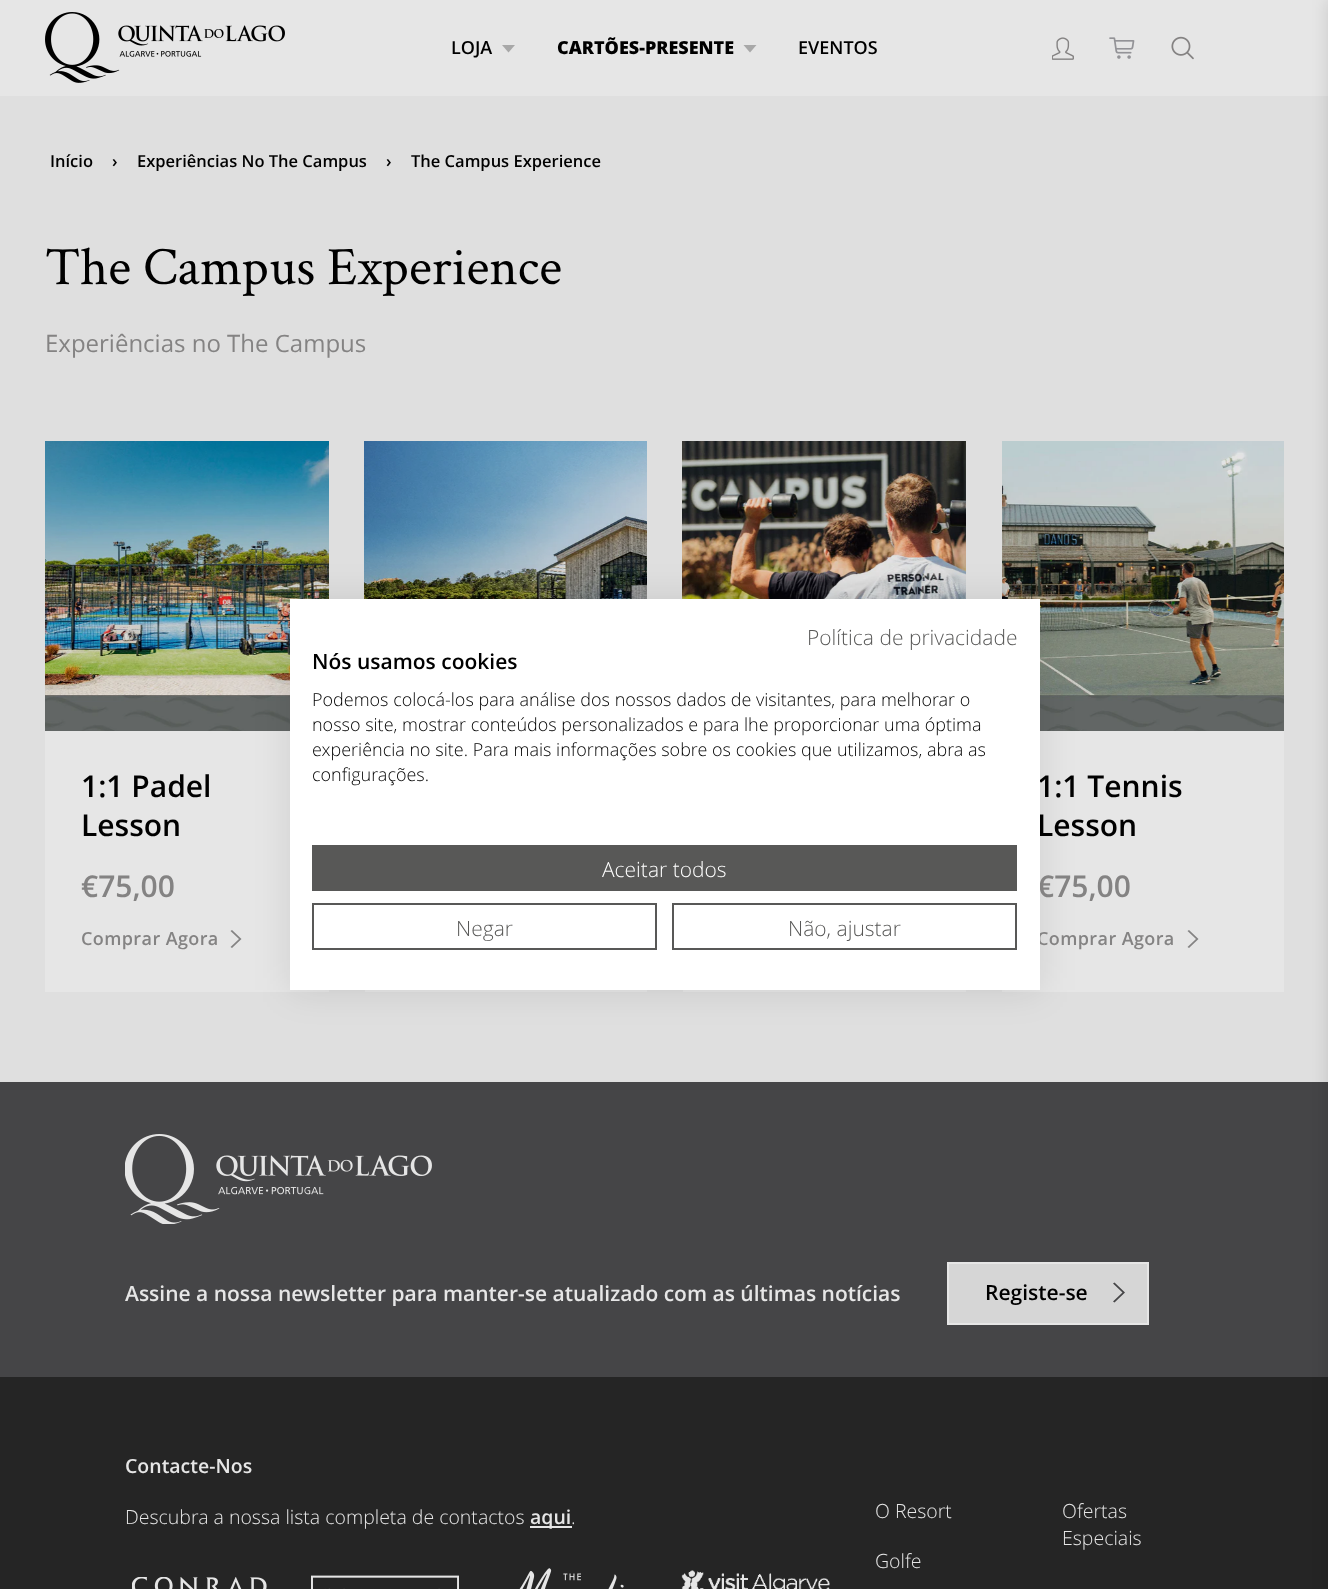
<?xml version="1.0" encoding="UTF-8"?>
<svg xmlns="http://www.w3.org/2000/svg" xmlns:xlink="http://www.w3.org/1999/xlink" width="1328" height="1589">
  <rect width="100%" height="100%" fill="#dfdfdf" />
  <rect width="1328" height="96" fill="#e6e6e6" />
  <image x="45" y="12" width="240" height="71" xlink:href="image1.png" />
  <path d="M 502 45 l 6.5 7.5 l 6.5 -7.5 z" fill="#a8a8a8" />
  <path d="M 743.5 45 l 6.5 7.5 l 6.5 -7.5 z" fill="#a8a8a8" />
  <image x="1052" y="37" width="22" height="23" xlink:href="image2.png" />
  <image x="1109" y="37" width="26" height="22" xlink:href="image3.png" />
  <image x="1171" y="36" width="23" height="24" xlink:href="image4.png" />
  <rect y="1082" width="1328" height="295" fill="#454547" />
  <rect y="1377" width="1328" height="212" fill="#252525" />
  <rect x="1326" width="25" height="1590" fill="#000000" fill-opacity="0.1" filter="blur(7.5px)" />
  <image x="45" y="441" width="284" height="290" xlink:href="image5.png" />
  <rect x="45" y="731" width="284" height="261" fill="#e6e6e6" />
  <path d="M 230.5 931 l 8.5 8 l -8.5 8 l 1.5 1 l 9.5 -9 l -9.5 -9 z" fill="#848383" />
  <image x="364" y="441" width="283" height="158" xlink:href="image6.png" />
  <rect x="365" y="990" width="282" height="2" fill="#e6e6e6" />
  <image x="682" y="441" width="284" height="158" xlink:href="image7.png" />
  <rect x="683" y="990" width="283" height="2" fill="#e6e6e6" />
  <image x="1002" y="441" width="282" height="290" xlink:href="image8.png" />
  <rect x="1002" y="731" width="282" height="261" fill="#e6e6e6" />
  <path d="M 1187.5 931 l 8.5 8 l -8.5 8 l 1.5 1 l 9.5 -9 l -9.5 -9 z" fill="#848383" />
  <rect x="290" y="599" width="750" height="391" fill="#000000" fill-opacity="0.1" filter="blur(18px)" />
  <image x="125" y="1134" width="307" height="90" xlink:href="image9.png" />
  <rect x="949" y="1264" width="198" height="59" fill="#d6d6d6" />
  <path d="M 1113 1283.5 l 9.5 9 l -9.5 9 l 1.5 1 l 10.5 -10 l -10.5 -10 z" fill="#454547" />
  <rect x="948" y="1263" width="200" height="61" fill="none" stroke="#e6e6e6" stroke-width="2" />
  <rect x="530" y="1526" width="42" height="2" fill="#e6e6e6" />
  <image x="132" y="1577" width="135" height="12" xlink:href="image10.png" />
  <image x="311" y="1575" width="148" height="14" xlink:href="image11.png" />
  <image x="519" y="1568" width="105" height="21" xlink:href="image12.png" />
  <image x="681" y="1570" width="149" height="19" xlink:href="image13.png" />
  <text x="451" y="54" style="font-family: Open Sans; font-size: 18px; font-weight: 600; fill: #000000">LOJA</text>
  <text x="557" y="54" style="font-family: Open Sans; font-size: 18px; font-weight: 800; fill: #000000">CARTÕES-PRESENTE</text>
  <text x="798" y="54" style="font-family: Open Sans; font-size: 18px; font-weight: 600; fill: #000000">EVENTOS</text>
  <text x="50" y="167" style="font-family: Open Sans; font-size: 16.5px; font-weight: 600; fill: #000000">Início</text>
  <text x="112" y="167" style="font-family: Open Sans; font-size: 16.5px; font-weight: 600; fill: #000000">›</text>
  <text x="137" y="167" style="font-family: Open Sans; font-size: 16.5px; font-weight: 600; fill: #000000">Experiências No The Campus</text>
  <text x="386" y="167" style="font-family: Open Sans; font-size: 16.5px; font-weight: 600; fill: #000000">›</text>
  <text x="411" y="167" style="font-family: Open Sans; font-size: 16.5px; font-weight: 600; fill: #000000">The Campus Experience</text>
  <text x="45" y="284" style="font-family: Crimson Text; font-size: 54px; fill: #000000">The Campus Experience</text>
  <text x="45" y="352" style="font-family: Open Sans; font-size: 24px; fill: #848383">Experiências no The Campus</text>
  <text x="81" y="797" style="font-family: Open Sans; font-size: 30px; font-weight: 600; fill: #000000">1:1 Padel</text>
  <text x="81" y="836" style="font-family: Open Sans; font-size: 30px; font-weight: 600; fill: #000000">Lesson</text>
  <text x="81" y="897" style="font-family: Open Sans; font-size: 30px; font-weight: 600; fill: #848383">€75,00</text>
  <text x="81" y="945" style="font-family: Open Sans; font-size: 18px; font-weight: 600; letter-spacing: 0.4px; fill: #848383">Comprar Agora</text>
  <text x="1037" y="797" style="font-family: Open Sans; font-size: 30px; font-weight: 600; fill: #000000">1:1 Tennis</text>
  <text x="1037" y="836" style="font-family: Open Sans; font-size: 30px; font-weight: 600; fill: #000000">Lesson</text>
  <text x="1037" y="897" style="font-family: Open Sans; font-size: 30px; font-weight: 600; fill: #848383">€75,00</text>
  <text x="1037" y="945" style="font-family: Open Sans; font-size: 18px; font-weight: 600; letter-spacing: 0.4px; fill: #848383">Comprar Agora</text>
  <rect x="290" y="599" width="750" height="391" fill="#ffffff" />
  <text x="807" y="645" style="font-family: Open Sans; font-size: 21px; font-weight: 300; fill: #585857">Política de privacidade</text>
  <text x="312" y="669" style="font-family: 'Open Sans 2'; font-size: 21px; font-weight: 600; fill: #000000">Nós usamos cookies</text>
  <text x="312" y="706" style="font-family: Open Sans; font-size: 18px; font-weight: 300; fill: #000000">Podemos colocá-los para análise dos nossos dados de visitantes, para melhorar o</text>
  <text x="312" y="731" style="font-family: Open Sans; font-size: 18px; font-weight: 300; fill: #000000">nosso site, mostrar conteúdos personalizados e para lhe proporcionar uma óptima</text>
  <text x="312" y="756" style="font-family: Open Sans; font-size: 18px; font-weight: 300; fill: #000000">experiência no site. Para mais informações sobre os cookies que utilizamos, abra as</text>
  <text x="312" y="781" style="font-family: Open Sans; font-size: 18px; font-weight: 300; fill: #000000">configurações.</text>
  <rect x="312" y="845" width="705" height="46" fill="#585857" />
  <text x="602" y="877" style="font-family: Open Sans; font-size: 21px; font-weight: 300; fill: #ffffff">Aceitar todos</text>
  <rect x="313" y="904" width="343" height="45" fill="none" stroke="#585857" stroke-width="2" />
  <text x="456" y="936" style="font-family: Open Sans; font-size: 21px; font-weight: 300; fill: #585857">Negar</text>
  <rect x="673" y="904" width="343" height="45" fill="none" stroke="#585857" stroke-width="2" />
  <text x="788" y="936" style="font-family: Open Sans; font-size: 21px; font-weight: 300; fill: #585857">Não, ajustar</text>
  <text x="125" y="1301" style="font-family: 'Open Sans 2'; font-size: 21px; font-weight: 600; fill: #e6e6e6">Assine a nossa newsletter para manter-se atualizado com as últimas notícias</text>
  <text x="985" y="1300" style="font-family: Open Sans; font-size: 21px; font-weight: 600; fill: #000000">Registe-se</text>
  <text x="125" y="1473" style="font-family: 'Open Sans 2'; font-size: 19.5px; font-weight: 600; fill: #e6e6e6">Contacte-Nos</text>
  <text x="125" y="1524" style="font-family: Open Sans; font-size: 19.5px; font-weight: 300; fill: #e6e6e6">Descubra a nossa lista completa de contactos</text>
  <text x="530" y="1524" style="font-family: 'Open Sans 2'; font-size: 19.5px; font-weight: 600; fill: #e6e6e6">aqui</text>
  <text x="571" y="1524" style="font-family: Open Sans; font-size: 19.5px; font-weight: 300; fill: #e6e6e6">.</text>
  <text x="875" y="1518" style="font-family: Open Sans; font-size: 19.5px; font-weight: 300; fill: #e6e6e6">O Resort</text>
  <text x="875" y="1568" style="font-family: Open Sans; font-size: 19.5px; font-weight: 300; fill: #e6e6e6">Golfe</text>
  <text x="1062" y="1518" style="font-family: Open Sans; font-size: 19.5px; font-weight: 300; fill: #e6e6e6">Ofertas</text>
  <text x="1062" y="1545" style="font-family: Open Sans; font-size: 19.5px; font-weight: 300; fill: #e6e6e6">Especiais</text>
</svg>
